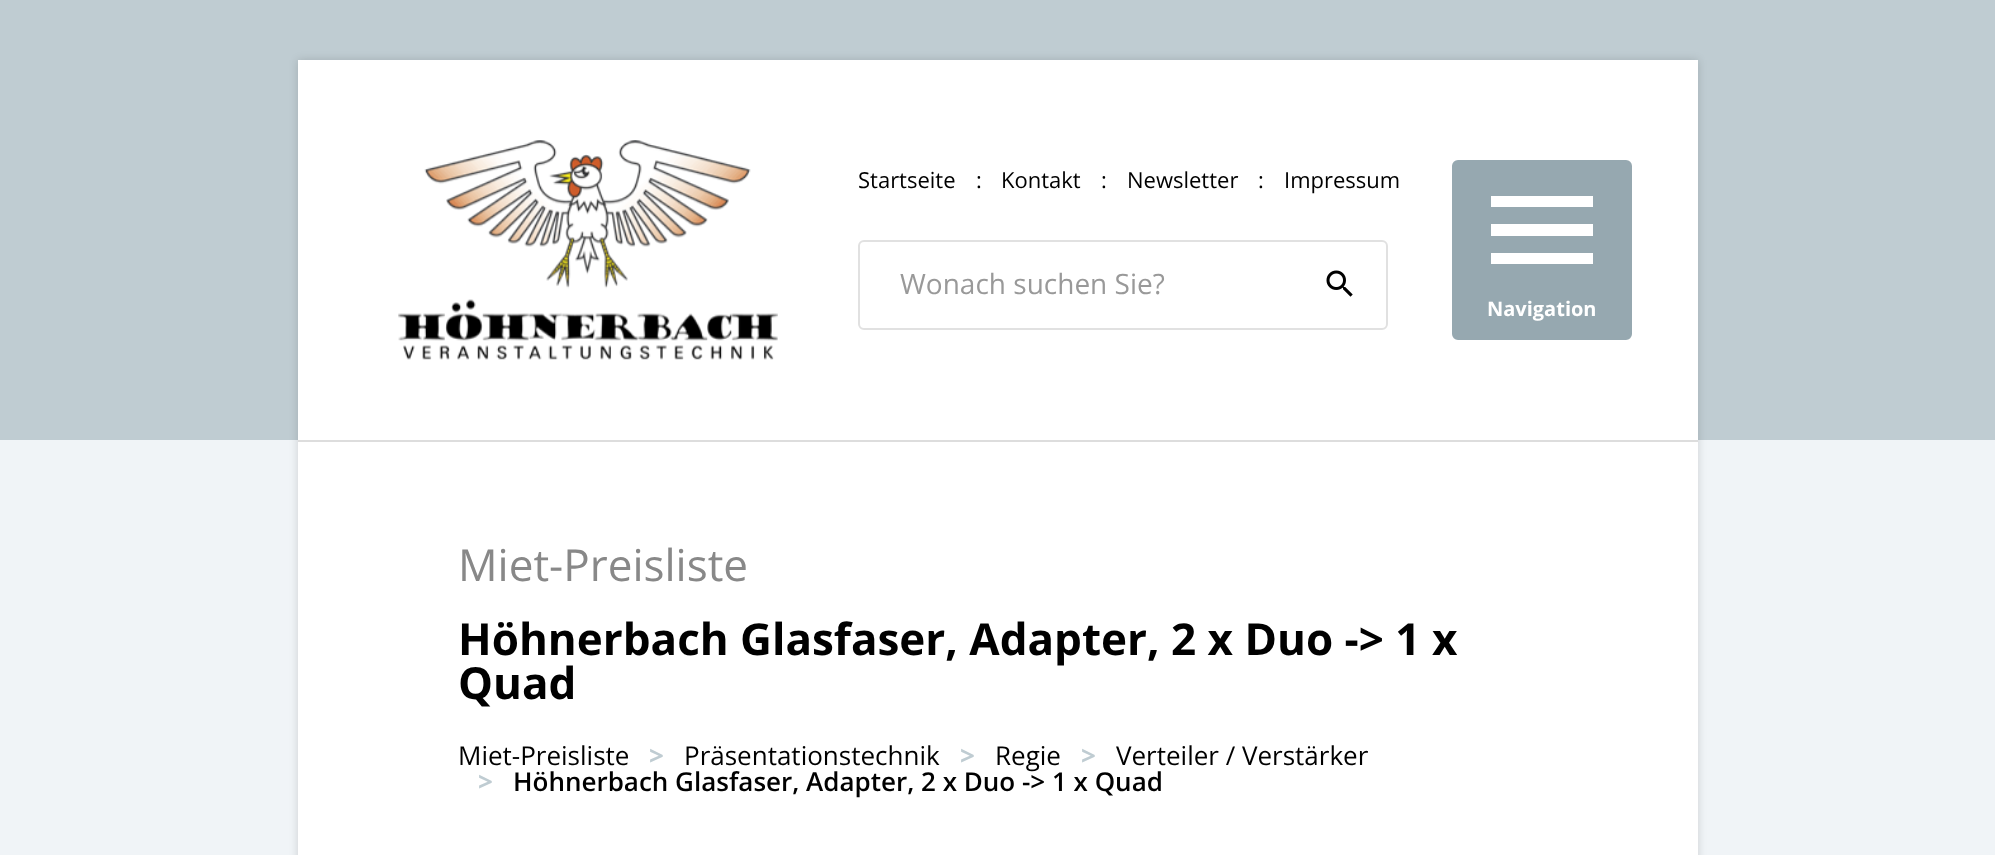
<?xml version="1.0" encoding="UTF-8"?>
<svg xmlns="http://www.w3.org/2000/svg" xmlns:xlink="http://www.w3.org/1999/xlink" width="1995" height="855">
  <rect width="100%" height="100%" fill="#f0f4f7" />
  <rect width="1995" height="440" fill="#bfccd2" />
  <rect x="298" y="60" width="1400" height="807" fill="#000000" fill-opacity="0.15" filter="blur(4px)" />
  <rect x="298" y="60" width="1400" height="795" fill="#ffffff" />
  <rect x="298" y="440" width="1400" height="2" fill="#dddddd" />
  <image x="398" y="140" width="380" height="220" xlink:href="image1.png" />
  <rect x="859" y="241" width="528" height="88" rx="5" fill="none" stroke="#e1e1e1" stroke-width="2" />
  <image x="1326" y="270" width="27" height="27" xlink:href="image2.png" />
  <rect x="1453" y="161" width="178" height="178" rx="5" fill="#96a8b0" stroke="#96a8b0" stroke-width="2" />
  <path d="M 1491 196 h 102 v 11 h -102 z m 0 40 v -12 h 102 v 12 z m 0 28 v -11 h 102 v 11 z" fill="#ffffff" />
  <text x="858" y="188" style="font-family: Open Sans; font-size: 22px; fill: #000000">Startseite</text>
  <text x="976" y="188" style="font-family: Open Sans; font-size: 22px; fill: #000000">:</text>
  <text x="1001" y="188" style="font-family: Open Sans; font-size: 22px; fill: #000000">Kontakt</text>
  <text x="1101" y="188" style="font-family: Open Sans; font-size: 22px; fill: #000000">:</text>
  <text x="1127" y="188" style="font-family: Open Sans; font-size: 22px; fill: #000000">Newsletter</text>
  <text x="1258" y="188" style="font-family: Open Sans; font-size: 22px; fill: #000000">:</text>
  <text x="1284" y="188" style="font-family: Open Sans; font-size: 22px; fill: #000000">Impressum</text>
  <text x="900" y="294" style="font-family: Open Sans; font-size: 28px; fill: #999999">Wonach suchen Sie?</text>
  <text x="1487" y="316" style="font-family: Open Sans; font-size: 20px; font-weight: bold; fill: #ffffff">Navigation</text>
  <text x="458" y="581" style="font-family: Open Sans; font-size: 44px; fill: #888888">Miet-Preisliste</text>
  <text x="458" y="655" style="font-family: Open Sans; font-size: 44px; font-weight: bold; fill: #000000">Höhnerbach Glasfaser, Adapter, 2 x Duo -&gt; 1 x</text>
  <text x="458" y="699" style="font-family: Open Sans; font-size: 44px; font-weight: bold; fill: #000000">Quad</text>
  <text x="458" y="765" style="font-family: Open Sans; font-size: 26px; fill: #000000">Miet-Preisliste</text>
  <text x="649" y="765" style="font-family: Open Sans; font-size: 26px; font-weight: bold; fill: #bfccd2">&gt;</text>
  <text x="684" y="765" style="font-family: Open Sans; font-size: 26px; fill: #000000">Präsentationstechnik</text>
  <text x="960" y="765" style="font-family: Open Sans; font-size: 26px; font-weight: bold; fill: #bfccd2">&gt;</text>
  <text x="995" y="765" style="font-family: Open Sans; font-size: 26px; fill: #000000">Regie</text>
  <text x="1081" y="765" style="font-family: Open Sans; font-size: 26px; font-weight: bold; fill: #bfccd2">&gt;</text>
  <text x="1116" y="765" style="font-family: Open Sans; font-size: 26px; fill: #000000">Verteiler / Verstärker</text>
  <text x="478" y="791" style="font-family: Open Sans; font-size: 26px; font-weight: bold; fill: #bfccd2">&gt;</text>
  <text x="513" y="791" style="font-family: Open Sans; font-size: 26px; font-weight: 600; fill: #000000">Höhnerbach Glasfaser, Adapter, 2 x Duo -&gt; 1 x Quad</text>
</svg>
